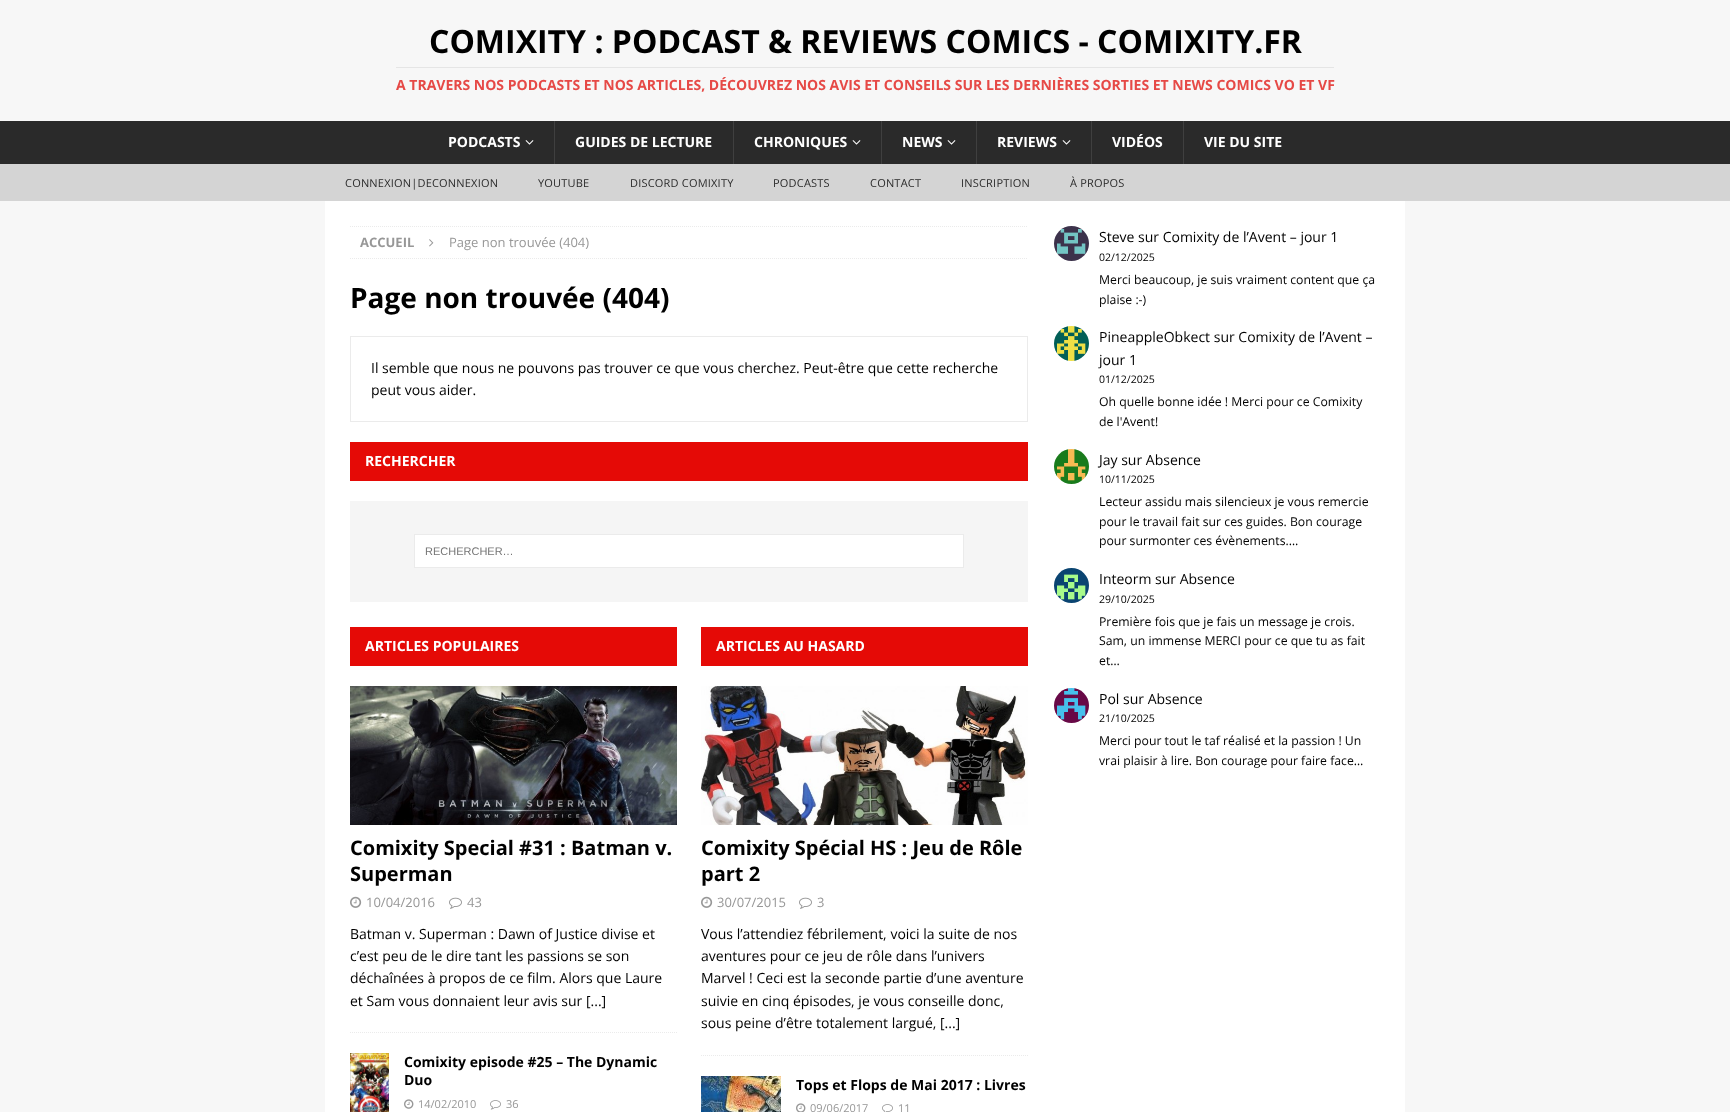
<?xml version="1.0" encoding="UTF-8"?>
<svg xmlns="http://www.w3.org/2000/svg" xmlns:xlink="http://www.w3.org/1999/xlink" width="1730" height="1112">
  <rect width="100%" height="100%" fill="#f7f7f7" />
  <rect x="396" y="67" width="938" height="1" fill="#e5e5e5" />
  <rect y="121" width="1730" height="43" fill="#2a2a2a" />
  <image x="525" y="140" width="9" height="5" xlink:href="image1.png" />
  <rect x="554" y="121" width="1" height="43" fill="#3f3f3f" />
  <rect x="733" y="121" width="1" height="43" fill="#3f3f3f" />
  <image x="852" y="140" width="9" height="5" xlink:href="image1.png" />
  <rect x="881" y="121" width="1" height="43" fill="#3f3f3f" />
  <image x="947" y="140" width="9" height="5" xlink:href="image1.png" />
  <rect x="976" y="121" width="1" height="43" fill="#3f3f3f" />
  <image x="1062" y="140" width="9" height="5" xlink:href="image1.png" />
  <rect x="1091" y="121" width="1" height="43" fill="#3f3f3f" />
  <rect x="1183" y="121" width="1" height="43" fill="#3f3f3f" />
  <rect y="164" width="1730" height="37" fill="#d4d4d4" />
  <rect x="325" y="201" width="1080" height="911" fill="#ffffff" />
  <path d="M 350 226.5 h 678" fill="none" stroke="#ebebeb" stroke-dasharray="1 1" />
  <path d="M 350 258.5 h 678" fill="none" stroke="#ebebeb" stroke-dasharray="1 1" />
  <image x="429" y="239" width="5" height="8" xlink:href="image2.png" />
  <rect x="350.5" y="336.5" width="677" height="85" fill="none" stroke="#ebebeb" />
  <rect x="350" y="442" width="678" height="39" fill="#e50a06" />
  <rect x="350" y="501" width="678" height="101" fill="#f5f5f5" />
  <rect x="414.5" y="534.5" width="549" height="33" fill="#ffffff" stroke="#ebebeb" />
  <rect x="350" y="627" width="327" height="39" fill="#e50a06" />
  <path d="M 350 1032.5 h 327" fill="none" stroke="#ebebeb" stroke-dasharray="1 1" />
  <image x="350" y="686" width="327" height="139" xlink:href="image3.png" />
  <image x="350" y="896" width="12" height="12" xlink:href="image4.png" />
  <image x="449" y="897" width="13" height="12" xlink:href="image5.png" />
  <image x="350" y="1053" width="39" height="59" xlink:href="image6.png" />
  <image x="404" y="1099" width="10" height="10" xlink:href="image7.png" />
  <image x="490" y="1100" width="11" height="10" xlink:href="image8.png" />
  <rect x="701" y="627" width="327" height="39" fill="#e50a06" />
  <path d="M 701 1055.5 h 327" fill="none" stroke="#ebebeb" stroke-dasharray="1 1" />
  <image x="701" y="686" width="327" height="139" xlink:href="image9.png" />
  <image x="701" y="896" width="12" height="12" xlink:href="image4.png" />
  <image x="799" y="897" width="13" height="12" xlink:href="image5.png" />
  <image x="701" y="1076" width="80" height="36" xlink:href="image10.png" />
  <image x="796" y="1103" width="10" height="9" xlink:href="image11.png" />
  <image x="882" y="1104" width="11" height="8" xlink:href="image12.png" />
  <image x="1054" y="226" width="35" height="35" xlink:href="image13.png" />
  <image x="1054" y="326" width="35" height="35" xlink:href="image14.png" />
  <image x="1054" y="449" width="35" height="35" xlink:href="image15.png" />
  <image x="1054" y="568" width="35" height="35" xlink:href="image16.png" />
  <image x="1054" y="688" width="35" height="35" xlink:href="image17.png" />
  <text x="429" y="53" style="font-family: Open Sans; font-size: 32px; font-weight: bold; fill: #000000">COMIXITY : PODCAST &amp; REVIEWS COMICS - COMIXITY.FR</text>
  <text x="396" y="90" style="font-family: Open Sans; font-size: 14px; font-weight: bold; fill: #e64946">A TRAVERS NOS PODCASTS ET NOS ARTICLES, DÉCOUVREZ NOS AVIS ET CONSEILS SUR LES DERNIÈRES SORTIES ET NEWS COMICS VO ET VF</text>
  <text x="448" y="147" style="font-family: Open Sans; font-size: 14px; font-weight: bold; fill: #ffffff">PODCASTS</text>
  <text x="575" y="147" style="font-family: Open Sans; font-size: 14px; font-weight: bold; fill: #ffffff">GUIDES DE LECTURE</text>
  <text x="754" y="147" style="font-family: Open Sans; font-size: 14px; font-weight: bold; fill: #ffffff">CHRONIQUES</text>
  <text x="902" y="147" style="font-family: Open Sans; font-size: 14px; font-weight: bold; fill: #ffffff">NEWS</text>
  <text x="997" y="147" style="font-family: Open Sans; font-size: 14px; font-weight: bold; fill: #ffffff">REVIEWS</text>
  <text x="1112" y="147" style="font-family: Open Sans; font-size: 14px; font-weight: bold; fill: #ffffff">VIDÉOS</text>
  <text x="1204" y="147" style="font-family: Open Sans; font-size: 14px; font-weight: bold; fill: #ffffff">VIE DU SITE</text>
  <text x="345" y="187" style="font-family: Open Sans; font-size: 11px; letter-spacing: 0.2px; fill: #2a2a2a">CONNEXION|DECONNEXION</text>
  <text x="538" y="187" style="font-family: Open Sans; font-size: 11px; letter-spacing: 0.2px; fill: #2a2a2a">YOUTUBE</text>
  <text x="630" y="187" style="font-family: Open Sans; font-size: 11px; letter-spacing: 0.2px; fill: #2a2a2a">DISCORD COMIXITY</text>
  <text x="773" y="187" style="font-family: Open Sans; font-size: 11px; letter-spacing: 0.2px; fill: #2a2a2a">PODCASTS</text>
  <text x="870" y="187" style="font-family: Open Sans; font-size: 11px; letter-spacing: 0.2px; fill: #2a2a2a">CONTACT</text>
  <text x="961" y="187" style="font-family: Open Sans; font-size: 11px; letter-spacing: 0.2px; fill: #2a2a2a">INSCRIPTION</text>
  <text x="1070" y="187" style="font-family: Open Sans; font-size: 11px; letter-spacing: 0.2px; fill: #2a2a2a">À PROPOS</text>
  <text x="360" y="247" style="font-family: Open Sans; font-size: 13px; font-weight: bold; fill: #979797">ACCUEIL</text>
  <text x="449" y="247" style="font-family: Open Sans; font-size: 13px; fill: #979797">Page non trouvée (404)</text>
  <text x="350" y="308" style="font-family: Open Sans; font-size: 28px; font-weight: bold; fill: #000000">Page non trouvée (404)</text>
  <text x="371" y="373" style="font-family: Open Sans; font-size: 14px; fill: #000000">Il semble que nous ne pouvons pas trouver ce que vous cherchez. Peut-être que cette recherche</text>
  <text x="371" y="395" style="font-family: Open Sans; font-size: 14px; fill: #000000">peut vous aider.</text>
  <text x="365" y="466" style="font-family: Open Sans; font-size: 14px; font-weight: bold; fill: #ffffff">RECHERCHER</text>
  <text x="425" y="555" style="font-family: Liberation Sans; font-size: 11px; fill: #757575">RECHERCHER…</text>
  <text x="365" y="651" style="font-family: Open Sans; font-size: 14px; font-weight: bold; fill: #ffffff">ARTICLES POPULAIRES</text>
  <text x="350" y="855" style="font-family: Open Sans; font-size: 20px; font-weight: bold; fill: #000000">Comixity Special #31 : Batman v.</text>
  <text x="350" y="881" style="font-family: Open Sans; font-size: 20px; font-weight: bold; fill: #000000">Superman</text>
  <text x="366" y="907" style="font-family: Open Sans; font-size: 13px; fill: #979797">10/04/2016</text>
  <text x="467" y="907" style="font-family: Open Sans; font-size: 13px; fill: #979797">43</text>
  <text x="350" y="939" style="font-family: Open Sans; font-size: 14px; fill: #000000">Batman v. Superman : Dawn of Justice divise et</text>
  <text x="350" y="961" style="font-family: Open Sans; font-size: 14px; fill: #000000">c’est peu de le dire tant les passions se son</text>
  <text x="350" y="983" style="font-family: Open Sans; font-size: 14px; fill: #000000">déchaînées à propos de ce film. Alors que Laure</text>
  <text x="350" y="1006" style="font-family: Open Sans; font-size: 14px; fill: #000000">et Sam vous donnaient leur avis sur [...]</text>
  <text x="404" y="1067" style="font-family: Open Sans; font-size: 14px; font-weight: bold; fill: #000000">Comixity episode #25 – The Dynamic</text>
  <text x="404" y="1085" style="font-family: Open Sans; font-size: 14px; font-weight: bold; fill: #000000">Duo</text>
  <text x="418" y="1108" style="font-family: Open Sans; font-size: 11px; fill: #979797">14/02/2010</text>
  <text x="506" y="1108" style="font-family: Open Sans; font-size: 11px; fill: #979797">36</text>
  <text x="716" y="651" style="font-family: Open Sans; font-size: 14px; font-weight: bold; fill: #ffffff">ARTICLES AU HASARD</text>
  <text x="701" y="855" style="font-family: Open Sans; font-size: 20px; font-weight: bold; fill: #000000">Comixity Spécial HS : Jeu de Rôle</text>
  <text x="701" y="881" style="font-family: Open Sans; font-size: 20px; font-weight: bold; fill: #000000">part 2</text>
  <text x="717" y="907" style="font-family: Open Sans; font-size: 13px; fill: #979797">30/07/2015</text>
  <text x="817" y="907" style="font-family: Open Sans; font-size: 13px; fill: #979797">3</text>
  <text x="701" y="939" style="font-family: Open Sans; font-size: 14px; fill: #000000">Vous l’attendiez fébrilement, voici la suite de nos</text>
  <text x="701" y="961" style="font-family: Open Sans; font-size: 14px; fill: #000000">aventures pour ce jeu de rôle dans l’univers</text>
  <text x="701" y="983" style="font-family: Open Sans; font-size: 14px; fill: #000000">Marvel ! Ceci est la seconde partie d’une aventure</text>
  <text x="701" y="1006" style="font-family: Open Sans; font-size: 14px; fill: #000000">suivie en cinq épisodes, je vous conseille donc,</text>
  <text x="701" y="1028" style="font-family: Open Sans; font-size: 14px; fill: #000000">sous peine d’être totalement largué, [...]</text>
  <text x="796" y="1090" style="font-family: Open Sans; font-size: 14px; font-weight: bold; fill: #000000">Tops et Flops de Mai 2017 : Livres</text>
  <text x="810" y="1112" style="font-family: Open Sans; font-size: 11px; fill: #979797">09/06/2017</text>
  <text x="898" y="1112" style="font-family: Open Sans; font-size: 11px; fill: #979797">11</text>
  <text x="1099" y="242" style="font-family: Open Sans; font-size: 14px; fill: #000000">Steve sur Comixity de l’Avent – jour 1</text>
  <text x="1099" y="261" style="font-family: Open Sans; font-size: 10.5px; fill: #000000">02/12/2025</text>
  <text x="1099" y="284" style="font-family: Open Sans; font-size: 12.25px; fill: #000000">Merci beaucoup, je suis vraiment content que ça</text>
  <text x="1099" y="304" style="font-family: Open Sans; font-size: 12.25px; fill: #000000">plaise :-)</text>
  <text x="1099" y="342" style="font-family: Open Sans; font-size: 14px; fill: #000000">PineappleObkect sur Comixity de l’Avent –</text>
  <text x="1099" y="365" style="font-family: Open Sans; font-size: 14px; fill: #000000">jour 1</text>
  <text x="1099" y="383" style="font-family: Open Sans; font-size: 10.5px; fill: #000000">01/12/2025</text>
  <text x="1099" y="406" style="font-family: Open Sans; font-size: 12.25px; fill: #000000">Oh quelle bonne idée ! Merci pour ce Comixity</text>
  <text x="1099" y="426" style="font-family: Open Sans; font-size: 12.25px; fill: #000000">de l'Avent!</text>
  <text x="1099" y="465" style="font-family: Open Sans; font-size: 14px; fill: #000000">Jay sur Absence</text>
  <text x="1099" y="483" style="font-family: Open Sans; font-size: 10.5px; fill: #000000">10/11/2025</text>
  <text x="1099" y="506" style="font-family: Open Sans; font-size: 12.25px; fill: #000000">Lecteur assidu mais silencieux je vous remercie</text>
  <text x="1099" y="526" style="font-family: Open Sans; font-size: 12.25px; fill: #000000">pour le travail fait sur ces guides. Bon courage</text>
  <text x="1099" y="545" style="font-family: Open Sans; font-size: 12.25px; fill: #000000">pour surmonter ces évènements.…</text>
  <text x="1099" y="584" style="font-family: Open Sans; font-size: 14px; fill: #000000">Inteorm sur Absence</text>
  <text x="1099" y="603" style="font-family: Open Sans; font-size: 10.5px; fill: #000000">29/10/2025</text>
  <text x="1099" y="626" style="font-family: Open Sans; font-size: 12.25px; fill: #000000">Première fois que je fais un message je crois.</text>
  <text x="1099" y="645" style="font-family: Open Sans; font-size: 12.25px; fill: #000000">Sam, un immense MERCI pour ce que tu as fait</text>
  <text x="1099" y="665" style="font-family: Open Sans; font-size: 12.25px; fill: #000000">et…</text>
  <text x="1099" y="704" style="font-family: Open Sans; font-size: 14px; fill: #000000">Pol sur Absence</text>
  <text x="1099" y="722" style="font-family: Open Sans; font-size: 10.5px; fill: #000000">21/10/2025</text>
  <text x="1099" y="745" style="font-family: Open Sans; font-size: 12.25px; fill: #000000">Merci pour tout le taf réalisé et la passion ! Un</text>
  <text x="1099" y="765" style="font-family: Open Sans; font-size: 12.25px; fill: #000000">vrai plaisir à lire. Bon courage pour faire face…</text>
</svg>
